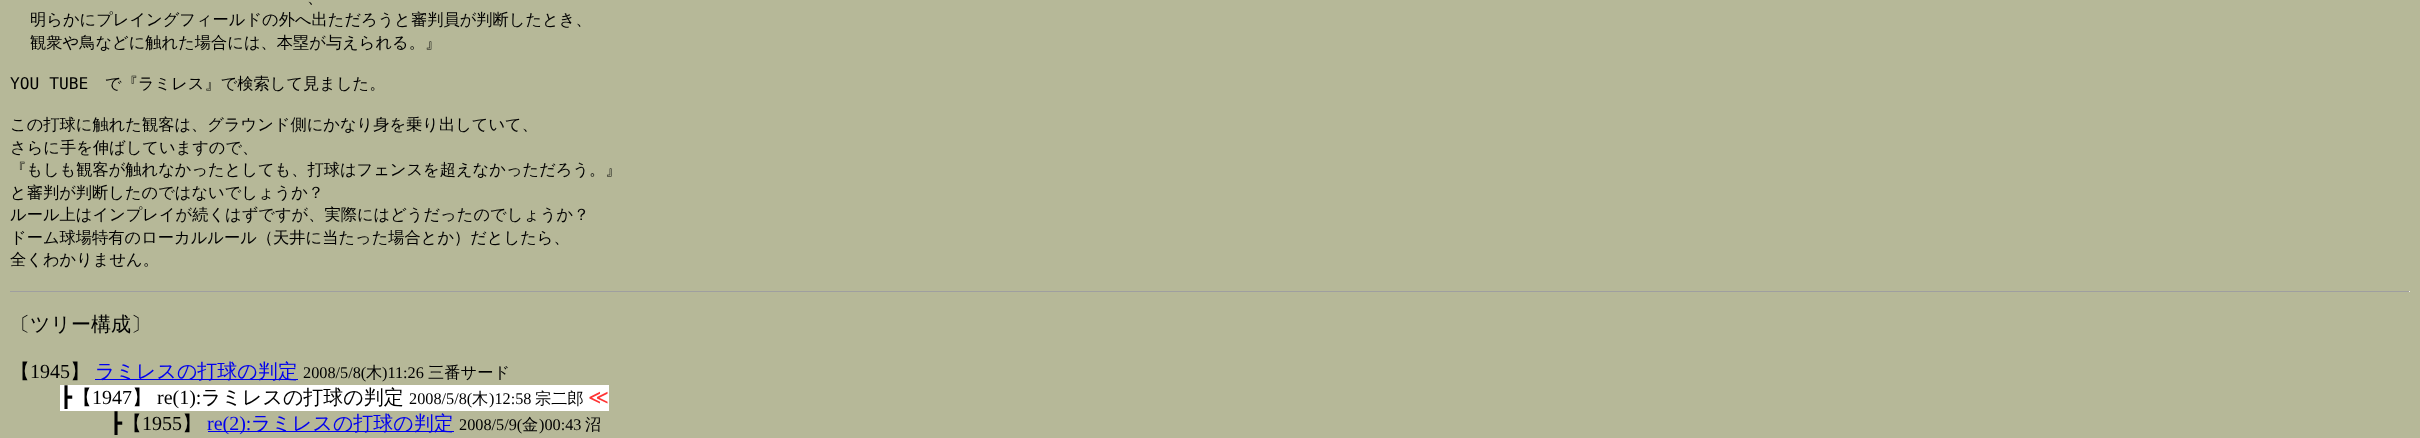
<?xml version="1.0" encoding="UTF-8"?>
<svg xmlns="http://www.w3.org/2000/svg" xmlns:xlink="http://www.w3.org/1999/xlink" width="2420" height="438">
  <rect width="100%" height="100%" fill="#b6b898" />
  <rect x="10" y="291" width="2400" height="1" fill="#9f9f9f" />
  <rect x="2409" y="291" width="1" height="1" fill="#eeeeee" />
  <rect x="95" y="379" width="203" height="1" fill="#0000ee" />
  <rect x="60" y="385" width="549" height="26" fill="#ffffff" />
  <rect x="208" y="431" width="246" height="1" fill="#0000ee" />
  <text x="307" y="3" style="font-family: WenQuanYi Zen Hei; font-size: 16.25px; font-weight: 500; fill: #000000">、</text>
  <text x="30" y="25" style="font-family: WenQuanYi Zen Hei; font-size: 16.25px; font-weight: 500; fill: #000000">明らかにプレイングフィールドの外へ出ただろうと審判員が判断したとき、</text>
  <text x="30" y="48" style="font-family: WenQuanYi Zen Hei; font-size: 16.25px; font-weight: 500; fill: #000000">観衆や鳥などに触れた場合には、本塁が与えられる。』</text>
  <text x="10" y="89" style="font-family: DejaVu Sans Mono; font-size: 16.25px; fill: #000000">YOU TUBE</text>
  <text x="105" y="89" style="font-family: WenQuanYi Zen Hei; font-size: 16.25px; font-weight: 500; fill: #000000">で『ラミレス』で検索して見ました。</text>
  <text x="10" y="130" style="font-family: WenQuanYi Zen Hei; font-size: 16.25px; font-weight: 500; fill: #000000">この打球に触れた観客は、グラウンド側にかなり身を乗り出していて、</text>
  <text x="10" y="153" style="font-family: WenQuanYi Zen Hei; font-size: 16.25px; font-weight: 500; fill: #000000">さらに手を伸ばしていますので、</text>
  <text x="10" y="175" style="font-family: WenQuanYi Zen Hei; font-size: 16.25px; font-weight: 500; fill: #000000">『もしも観客が触れなかったとしても、打球はフェンスを超えなかっただろう。』</text>
  <text x="10" y="198" style="font-family: WenQuanYi Zen Hei; font-size: 16.25px; font-weight: 500; fill: #000000">と審判が判断したのではないでしょうか？</text>
  <text x="10" y="220" style="font-family: WenQuanYi Zen Hei; font-size: 16.25px; font-weight: 500; fill: #000000">ルール上はインプレイが続くはずですが、実際にはどうだったのでしょうか？</text>
  <text x="10" y="243" style="font-family: WenQuanYi Zen Hei; font-size: 16.25px; font-weight: 500; fill: #000000">ドーム球場特有のローカルルール（天井に当たった場合とか）だとしたら、</text>
  <text x="10" y="265" style="font-family: WenQuanYi Zen Hei; font-size: 16.25px; font-weight: 500; fill: #000000">全くわかりません。</text>
  <text x="10" y="331" style="font-family: WenQuanYi Zen Hei; font-size: 20px; font-weight: 500; fill: #000000">〔ツリー構成〕</text>
  <text x="10" y="378" style="font-family: WenQuanYi Zen Hei; font-size: 20px; font-weight: 500; fill: #000000">【</text>
  <text x="30" y="378" style="font-family: Liberation Serif; font-size: 20px; fill: #000000">1945</text>
  <text x="70" y="378" style="font-family: WenQuanYi Zen Hei; font-size: 20px; font-weight: 500; fill: #000000">】</text>
  <text x="95" y="378" style="font-family: WenQuanYi Zen Hei; font-size: 20px; font-weight: 500; fill: #0000ee">ラミレスの打球の判定</text>
  <text x="303" y="378" style="font-family: Liberation Serif; font-size: 16.25px; fill: #000000">2008/5/8(</text>
  <text x="366" y="378" style="font-family: WenQuanYi Zen Hei; font-size: 16.25px; font-weight: 500; fill: #000000">木</text>
  <text x="382" y="378" style="font-family: Liberation Serif; font-size: 16.25px; fill: #000000">)11:26</text>
  <text x="428" y="378" style="font-family: WenQuanYi Zen Hei; font-size: 16.25px; font-weight: 500; fill: #000000">三番サード</text>
  <text x="60" y="404" style="font-family: DejaVu Sans; font-size: 20px; fill: #000000">┣</text>
  <text x="72" y="404" style="font-family: WenQuanYi Zen Hei; font-size: 20px; font-weight: 500; fill: #000000">【</text>
  <text x="92" y="404" style="font-family: Liberation Serif; font-size: 20px; fill: #000000">1947</text>
  <text x="132" y="404" style="font-family: WenQuanYi Zen Hei; font-size: 20px; font-weight: 500; fill: #000000">】</text>
  <text x="157" y="404" style="font-family: Liberation Serif; font-size: 20px; fill: #000000">re(1):</text>
  <text x="201" y="404" style="font-family: WenQuanYi Zen Hei; font-size: 20px; font-weight: 500; fill: #000000">ラミレスの打球の判定</text>
  <text x="409" y="404" style="font-family: Liberation Serif; font-size: 16.25px; fill: #000000">2008/5/8(</text>
  <text x="472" y="404" style="font-family: WenQuanYi Zen Hei; font-size: 16.25px; font-weight: 500; fill: #000000">木</text>
  <text x="489" y="404" style="font-family: Liberation Serif; font-size: 16.25px; fill: #000000">)12:58</text>
  <text x="535" y="404" style="font-family: WenQuanYi Zen Hei; font-size: 16.25px; font-weight: 500; fill: #000000">宗二郎</text>
  <text x="588" y="404" style="font-family: DejaVu Sans; font-size: 20px; fill: #ff3333">≪</text>
  <text x="110" y="430" style="font-family: DejaVu Sans; font-size: 20px; fill: #000000">┣</text>
  <text x="122" y="430" style="font-family: WenQuanYi Zen Hei; font-size: 20px; font-weight: 500; fill: #000000">【</text>
  <text x="142" y="430" style="font-family: Liberation Serif; font-size: 20px; fill: #000000">1955</text>
  <text x="182" y="430" style="font-family: WenQuanYi Zen Hei; font-size: 20px; font-weight: 500; fill: #000000">】</text>
  <text x="207" y="430" style="font-family: Liberation Serif; font-size: 20px; fill: #0000ee">re(2):</text>
  <text x="251" y="430" style="font-family: WenQuanYi Zen Hei; font-size: 20px; font-weight: 500; fill: #0000ee">ラミレスの打球の判定</text>
  <text x="459" y="430" style="font-family: Liberation Serif; font-size: 16.25px; fill: #000000">2008/5/9(</text>
  <text x="522" y="430" style="font-family: WenQuanYi Zen Hei; font-size: 16.25px; font-weight: 500; fill: #000000">金</text>
  <text x="539" y="430" style="font-family: Liberation Serif; font-size: 16.25px; fill: #000000">)00:43</text>
  <text x="585" y="430" style="font-family: WenQuanYi Zen Hei; font-size: 16.25px; font-weight: 500; fill: #000000">沼</text>
</svg>
